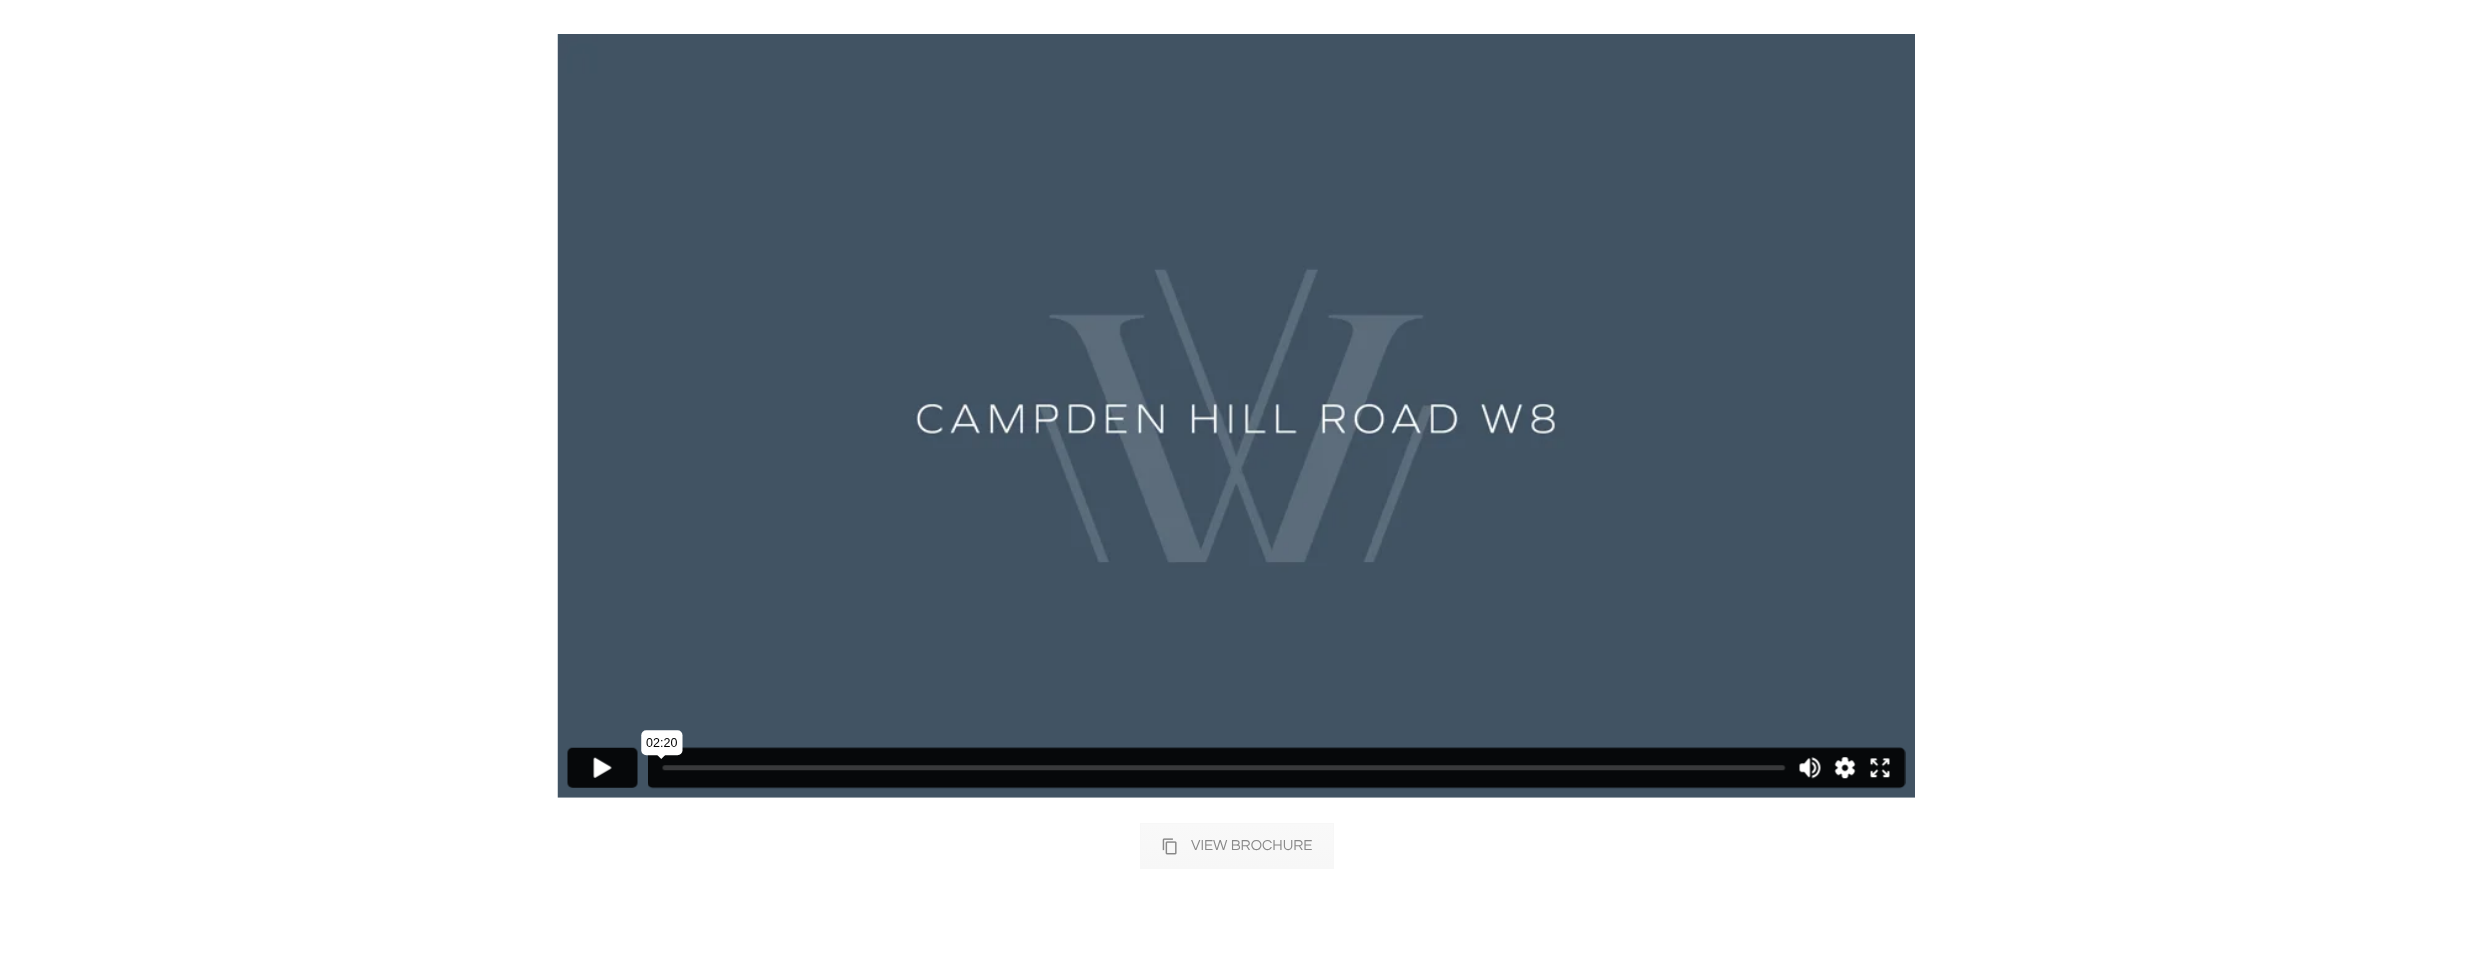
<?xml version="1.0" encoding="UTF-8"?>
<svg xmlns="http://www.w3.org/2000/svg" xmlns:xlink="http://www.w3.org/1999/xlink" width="2473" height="954">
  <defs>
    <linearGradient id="g1" gradientUnits="userSpaceOnUse" x1="1237" y1="824" x2="1237" y2="868"><stop offset="0" stop-color="#f9f9f9" /><stop offset="1" stop-color="#f7f7f7" /></linearGradient>
  </defs>
  <rect width="100%" height="100%" fill="#ffffff" />
  <image x="557" y="34" width="1358" height="764" xlink:href="image1.png" />
  <rect x="1141" y="824" width="192" height="44" fill="url(#g1)" />
  <rect x="1140.5" y="823.5" width="193" height="45" fill="none" stroke="#f7f7f7" />
  <image x="1162" y="838" width="15" height="17" xlink:href="image2.png" />
  <text x="1191" y="850" style="font-family: Questrial; font-size: 15px; fill: #888888">VIEW BROCHURE</text>
</svg>
